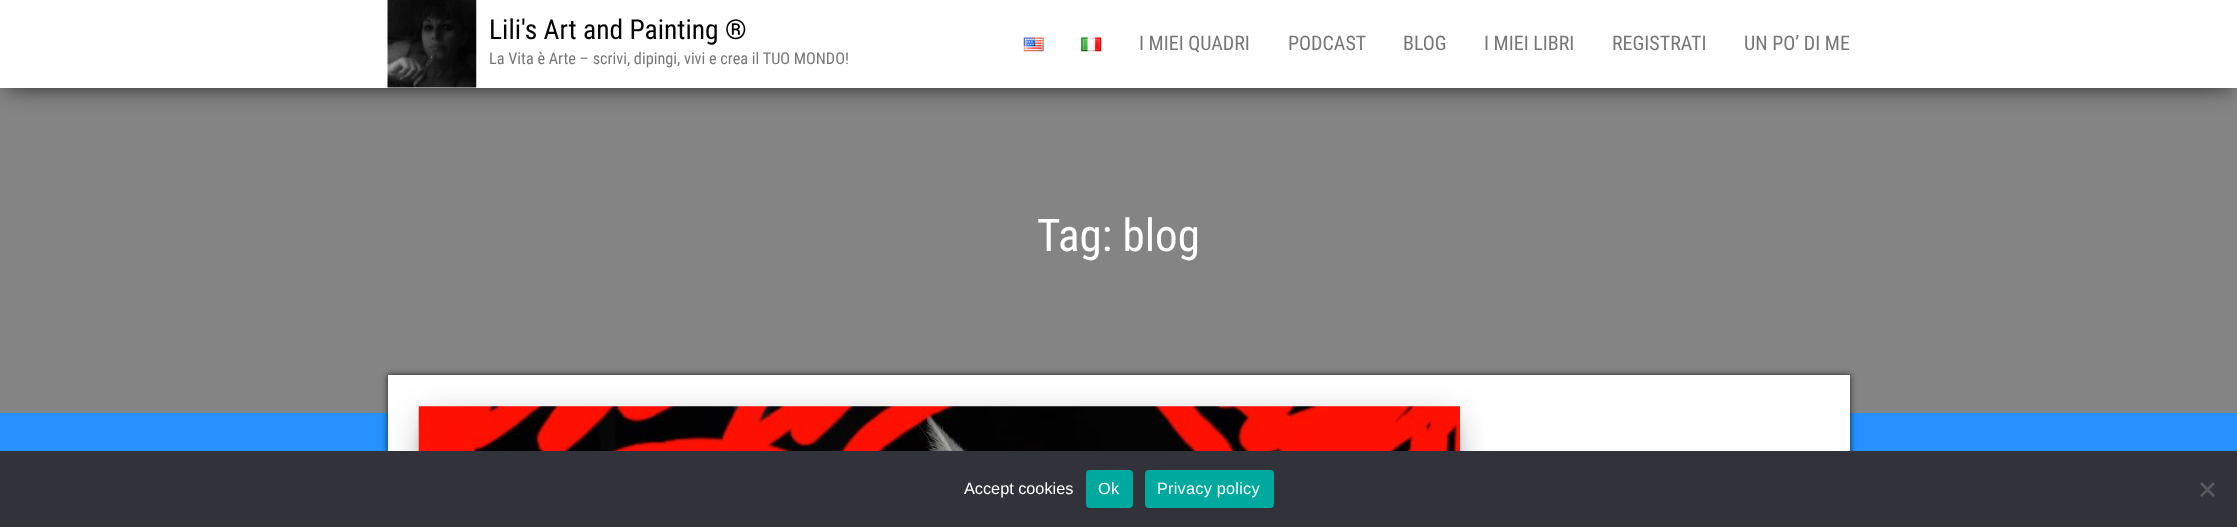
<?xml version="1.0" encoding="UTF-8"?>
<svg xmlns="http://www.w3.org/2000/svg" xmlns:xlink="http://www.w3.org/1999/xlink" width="2237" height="527">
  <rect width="100%" height="100%" fill="#2591fc" />
  <rect y="88" width="2237" height="325" fill="#848484" />
  <rect x="6" y="16" width="2225" height="75" fill="#000000" fill-opacity="0.2" filter="blur(6px)" />
  <rect y="4" width="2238" height="87" fill="#000000" fill-opacity="0.12" filter="blur(12.5px)" />
  <rect x="15" y="28" width="2208" height="57" fill="#000000" fill-opacity="0.42" filter="blur(12.5px)" />
  <rect width="2237" height="88" fill="#ffffff" />
  <image x="387" y="0" width="90" height="88" xlink:href="image1.png" />
  <image x="1023" y="37" width="21" height="15" xlink:href="image2.png" />
  <image x="1081" y="37" width="21" height="15" xlink:href="image3.png" />
  <rect x="388" y="375" width="1462" height="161" fill="#000000" fill-opacity="0.75" filter="blur(3px)" />
  <rect x="388" y="375" width="1462" height="76" fill="#ffffff" />
  <rect x="419" y="411" width="1041" height="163" fill="#000000" fill-opacity="0.12" filter="blur(15.5px)" />
  <rect x="434" y="434" width="1011" height="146" fill="#000000" fill-opacity="0.56" filter="blur(17.5px)" />
  <rect x="425" y="423" width="1029" height="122" fill="#000000" fill-opacity="0.2" filter="blur(6px)" />
  <image x="418" y="406" width="1042" height="45" xlink:href="image4.png" />
  <rect y="451" width="2237" height="76" fill="#32323a" />
  <rect x="1086" y="470" width="47" height="38" rx="4" fill="#00a99d" />
  <rect x="1145" y="470" width="129" height="38" rx="4" fill="#00a99d" />
  <path d="M 2213 482 l 2 2 l -13 13 l -2 -1.5 z" fill="#59595d" />
  <path d="M 2200 484 l 2 -2 l 13 13.5 l -2 1.5 z" fill="#59595d" />
  <text x="489" y="39" style="font-family: Roboto Condensed; font-size: 27.5px; fill: #000000">Lili's Art and Painting ®</text>
  <text x="489" y="64" style="font-family: Roboto Condensed; font-size: 16.25px; fill: #777777">La Vita è Arte – scrivi, dipingi, vivi e crea il TUO MONDO!</text>
  <text x="1139" y="50" style="font-family: Roboto Condensed; font-size: 20px; fill: #777777">I MIEI QUADRI</text>
  <text x="1288" y="50" style="font-family: Roboto Condensed; font-size: 20px; fill: #777777">PODCAST</text>
  <text x="1403" y="50" style="font-family: Roboto Condensed; font-size: 20px; fill: #777777">BLOG</text>
  <text x="1484" y="50" style="font-family: Roboto Condensed; font-size: 20px; fill: #777777">I MIEI LIBRI</text>
  <text x="1612" y="50" style="font-family: Roboto Condensed; font-size: 20px; fill: #777777">REGISTRATI</text>
  <text x="1744" y="50" style="font-family: Roboto Condensed; font-size: 20px; fill: #777777">UN PO’ DI ME</text>
  <text x="1037" y="251" style="font-family: Roboto Condensed; font-size: 45px; fill: #ffffff">Tag: blog</text>
  <text x="964" y="494" style="font-family: Liberation Sans; font-size: 16.25px; fill: #ffffff">Accept cookies</text>
  <text x="1098" y="494" style="font-family: Liberation Sans; font-size: 16.25px; letter-spacing: 0.25px; fill: #ffffff">Ok</text>
  <text x="1157" y="494" style="font-family: Liberation Sans; font-size: 16.25px; letter-spacing: 0.25px; fill: #ffffff">Privacy policy</text>
</svg>
